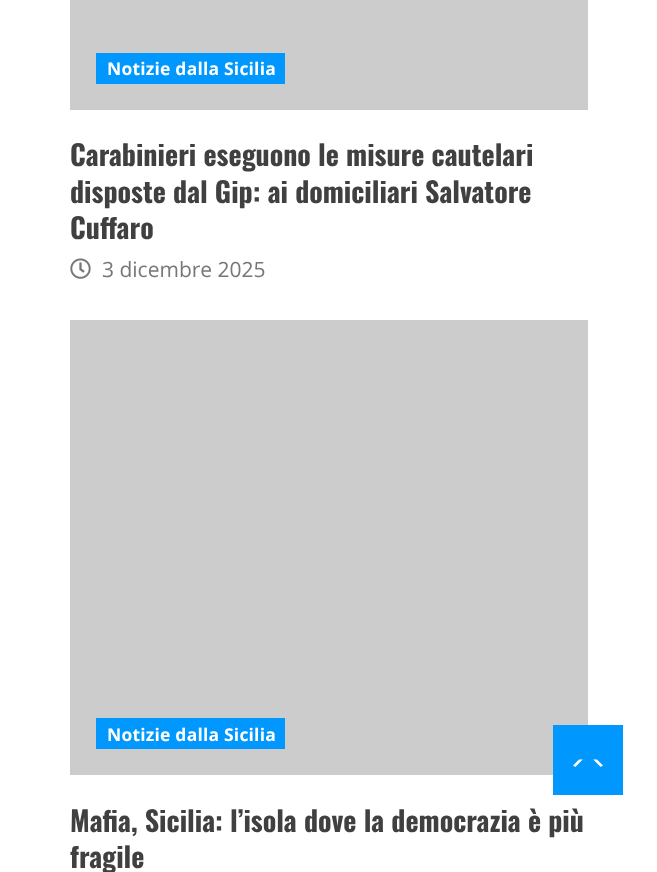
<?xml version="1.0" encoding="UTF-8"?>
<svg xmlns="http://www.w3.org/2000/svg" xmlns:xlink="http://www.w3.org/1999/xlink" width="657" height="872">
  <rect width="100%" height="100%" fill="#ffffff" />
  <rect x="70" width="518" height="110" fill="#cccccc" />
  <rect x="96" y="53" width="189" height="31" fill="#0098fe" />
  <image x="70" y="258" width="21" height="21" xlink:href="image1.png" />
  <rect x="70" y="320" width="518" height="455" fill="#cccccc" />
  <rect x="96" y="718" width="189" height="31" fill="#0098fe" />
  <rect x="553" y="725" width="70" height="70" fill="#0098fe" />
  <path d="M 603 765.5 c -4 3.5 -10.5 2.5 -15 2.5 c -4.5 0 -11 1 -15 -2.5 l 6 -6 h 18 z" fill="#ffffff" />
  <path d="M 605.5 772 h -35 l 17.5 -18 z" fill="#0098fe" />
  <text x="107" y="75" style="font-family: Open Sans; font-size: 17.5px; font-weight: bold; letter-spacing: 0.2px; fill: #ffffff">Notizie dalla Sicilia</text>
  <text x="70" y="166" style="font-family: Oswald; font-size: 28px; font-weight: bold; fill: #404040">Carabinieri eseguono le misure cautelari</text>
  <text x="70" y="203" style="font-family: Oswald; font-size: 28px; font-weight: bold; fill: #404040">disposte dal Gip: ai domiciliari Salvatore</text>
  <text x="70" y="239" style="font-family: Oswald; font-size: 28px; font-weight: bold; fill: #404040">Cuffaro</text>
  <text x="102" y="277" style="font-family: Open Sans; font-size: 21px; fill: #777777">3 dicembre 2025</text>
  <text x="107" y="741" style="font-family: Open Sans; font-size: 17.5px; font-weight: bold; letter-spacing: 0.2px; fill: #ffffff">Notizie dalla Sicilia</text>
  <text x="70" y="832" style="font-family: Oswald; font-size: 28px; font-weight: bold; fill: #404040">Mafia, Sicilia: l’isola dove la democrazia è più</text>
  <text x="70" y="868" style="font-family: Oswald; font-size: 28px; font-weight: bold; fill: #404040">fragile</text>
</svg>
